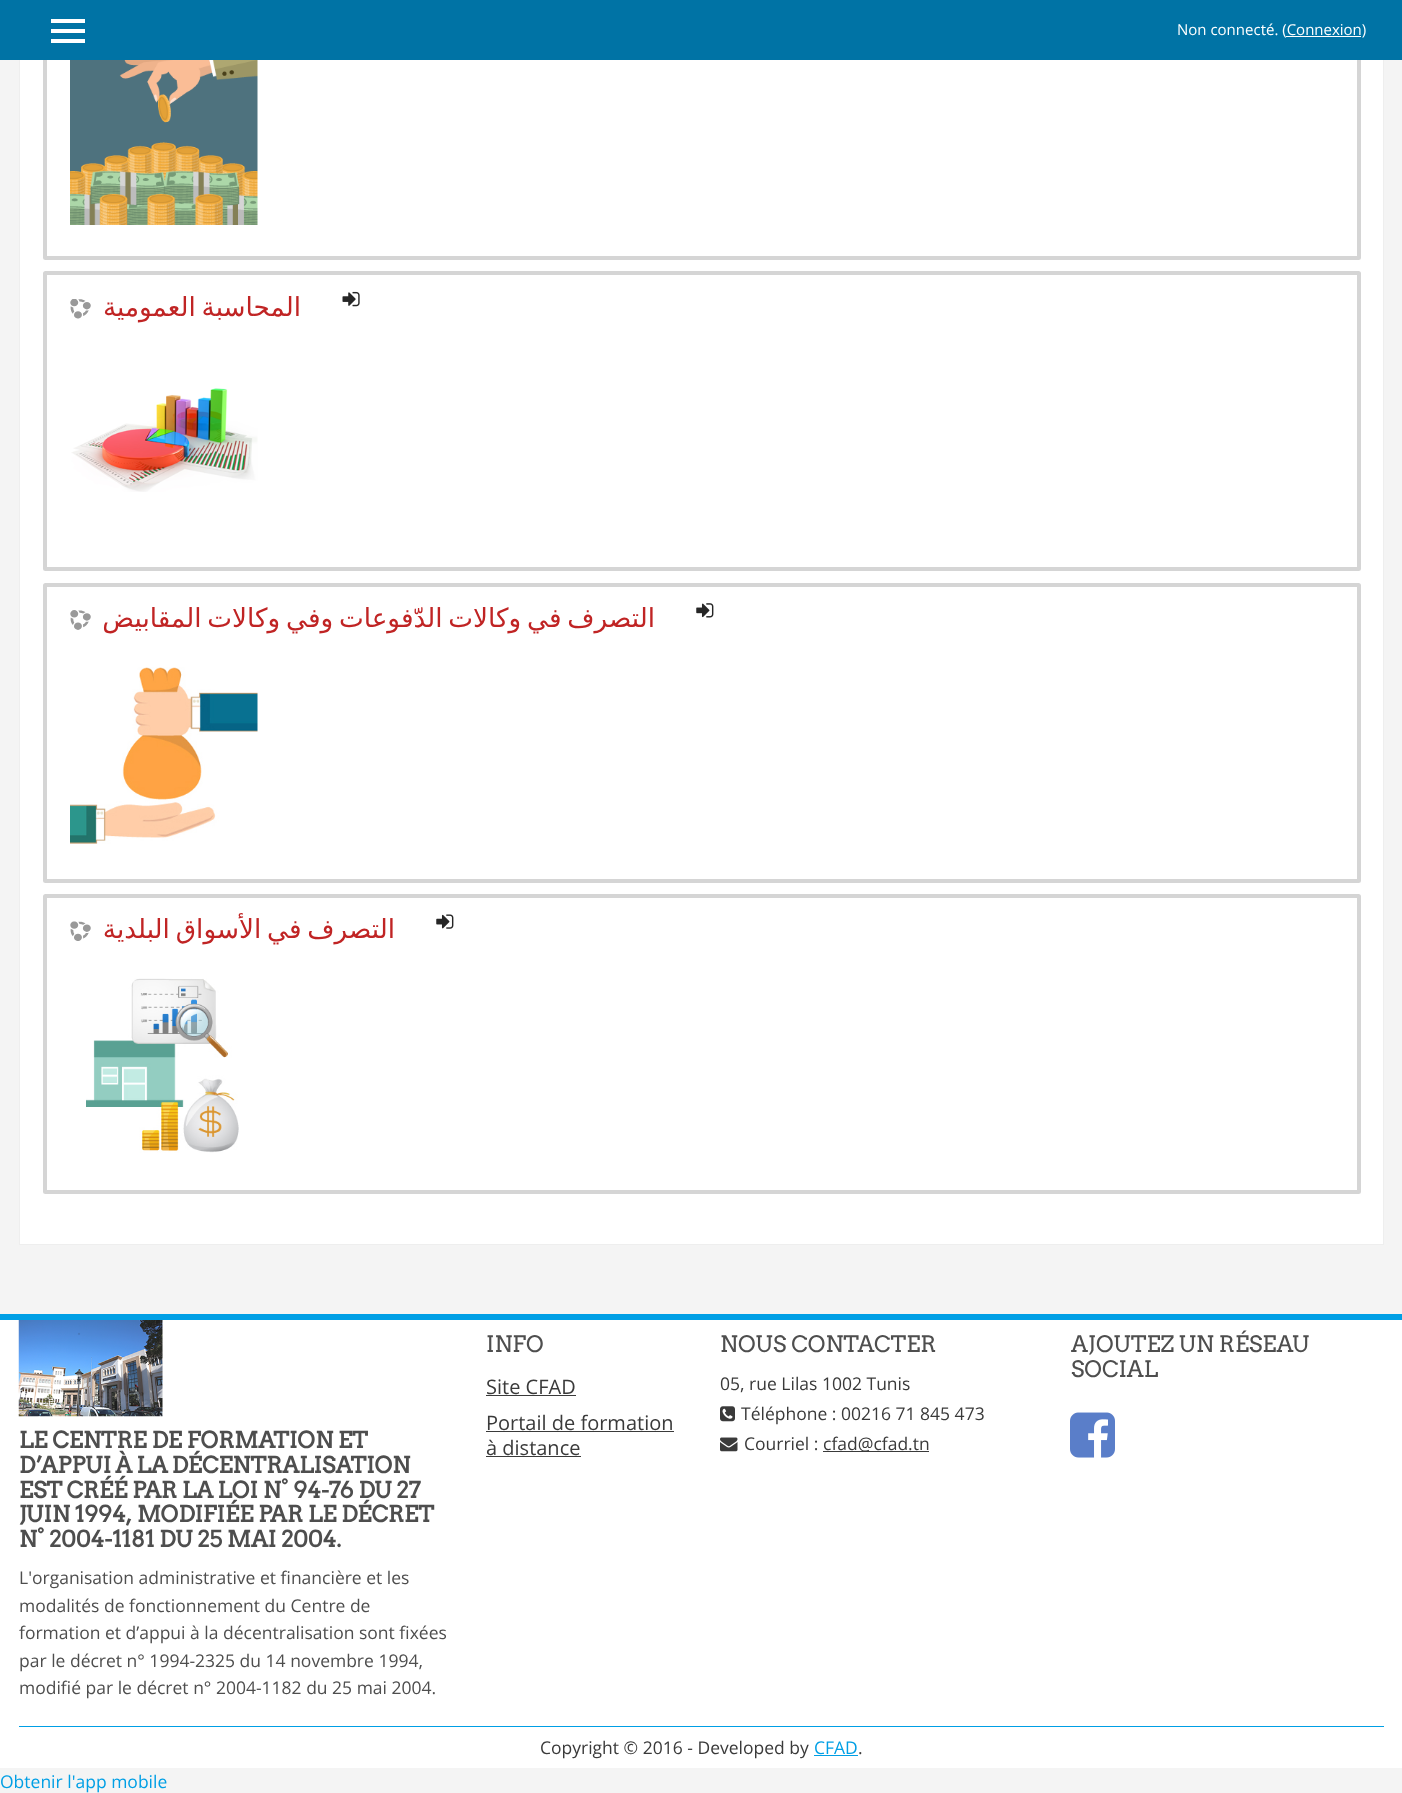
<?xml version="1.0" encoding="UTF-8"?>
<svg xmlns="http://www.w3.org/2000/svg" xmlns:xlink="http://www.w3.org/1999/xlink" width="1402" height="1793">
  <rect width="100%" height="100%" fill="#f4f4f4" />
  <rect x="20" y="60" width="1363" height="1184" fill="#ffffff" />
  <rect x="19.5" y="-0.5" width="1364" height="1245" fill="none" stroke="#eeeeee" />
  <rect x="45" y="-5" width="1314" height="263" rx="0.5" fill="none" stroke="#d5d5d5" stroke-width="4" />
  <rect width="1402" height="60" fill="#0073a5" />
  <rect x="51" y="19" width="34" height="4" fill="#ffffff" />
  <rect x="51" y="29" width="34" height="4" fill="#ffffff" />
  <rect x="51" y="39" width="34" height="4" fill="#ffffff" />
  <rect x="1286" y="36" width="75" height="1" fill="#ffffff" />
  <image x="70" y="60" width="188" height="165" xlink:href="image1.png" />
  <rect x="45" y="273" width="1314" height="296" rx="0.5" fill="none" stroke="#d5d5d5" stroke-width="4" />
  <image x="70" y="299" width="21" height="20" xlink:href="image2.png" />
  <image x="342" y="291" width="18" height="16" xlink:href="image3.png" />
  <image x="71" y="388" width="187" height="104" xlink:href="image4.png" />
  <rect x="45" y="585" width="1314" height="296" rx="0.5" fill="none" stroke="#d5d5d5" stroke-width="4" />
  <image x="70" y="610" width="21" height="20" xlink:href="image5.png" />
  <image x="696" y="603" width="18" height="15" xlink:href="image6.png" />
  <image x="70" y="667" width="188" height="177" xlink:href="image7.png" />
  <rect x="45" y="896" width="1314" height="296" rx="0.5" fill="none" stroke="#d5d5d5" stroke-width="4" />
  <image x="70" y="921" width="21" height="20" xlink:href="image8.png" />
  <image x="436" y="914" width="18" height="15" xlink:href="image9.png" />
  <image x="86" y="978" width="153" height="175" xlink:href="image10.png" />
  <rect y="1320" width="1402" height="448" fill="#ffffff" />
  <rect y="1314" width="1402" height="6" fill="#009fe5" />
  <rect x="486" y="1395" width="90" height="1" fill="#3a3a3a" />
  <rect x="486" y="1431" width="188" height="1" fill="#3a3a3a" />
  <rect x="486" y="1456" width="95" height="1" fill="#3a3a3a" />
  <image x="720" y="1406" width="15" height="16" xlink:href="image11.png" />
  <image x="720" y="1437" width="18" height="15" xlink:href="image12.png" />
  <rect x="823" y="1451" width="106" height="1" fill="#3a3a3a" />
  <image x="1070" y="1412" width="45" height="46" xlink:href="image13.png" />
  <image x="18" y="1320" width="145" height="97" xlink:href="image14.png" />
  <rect x="19" y="1726" width="1365" height="1" fill="#009fe5" />
  <rect x="814" y="1755" width="44" height="1" fill="#009fe5" />
  <text x="1177" y="35" style="font-family: Open Sans; font-size: 15px; fill: #ffffff">Non connecté. (Connexion)</text>
  <text x="301" y="316" word-spacing="-2.5" style="font-family: DejaVu Sans; font-size: 26.25px; direction: rtl; fill: #c02424">المحاسبة العمومية</text>
  <text x="655" y="627" word-spacing="-2.5" style="font-family: DejaVu Sans; font-size: 26.25px; direction: rtl; fill: #c02424">التصرف في وكالات الدّفوعات وفي وكالات المقابيض</text>
  <text x="395" y="938" word-spacing="-2.5" style="font-family: DejaVu Sans; font-size: 26.25px; direction: rtl; fill: #c02424">التصرف في الأسواق البلدية</text>
  <text x="486" y="1352" style="font-family: Arvo; font-size: 22.5px; fill: #4e4e4e">INFO</text>
  <text x="486" y="1394" style="font-family: Open Sans; font-size: 20px; fill: #3a3a3a">Site CFAD</text>
  <text x="486" y="1430" style="font-family: Open Sans; font-size: 20px; fill: #3a3a3a">Portail de formation</text>
  <text x="486" y="1455" style="font-family: Open Sans; font-size: 20px; fill: #3a3a3a">à distance</text>
  <text x="720" y="1352" style="font-family: Arvo; font-size: 22.5px; fill: #4e4e4e">NOUS CONTACTER</text>
  <text x="720" y="1390" style="font-family: Open Sans; font-size: 17.5px; fill: #3a3a3a">05, rue Lilas 1002 Tunis</text>
  <text x="741" y="1420" style="font-family: Open Sans; font-size: 17.5px; fill: #3a3a3a">Téléphone : 00216 71 845 473</text>
  <text x="744" y="1450" style="font-family: Open Sans; font-size: 17.5px; fill: #3a3a3a">Courriel :</text>
  <text x="823" y="1450" style="font-family: Open Sans; font-size: 17.5px; fill: #3a3a3a">cfad@cfad.tn</text>
  <text x="1071" y="1352" style="font-family: Arvo; font-size: 22.5px; fill: #4e4e4e">AJOUTEZ UN RÉSEAU</text>
  <text x="1071" y="1377" style="font-family: Arvo; font-size: 22.5px; fill: #4e4e4e">SOCIAL</text>
  <text x="19" y="1448" style="font-family: Arvo; font-size: 22.5px; font-weight: bold; fill: #4e4e4e">LE CENTRE DE FORMATION ET</text>
  <text x="19" y="1473" style="font-family: Arvo; font-size: 22.5px; font-weight: bold; fill: #4e4e4e">D’APPUI À LA DÉCENTRALISATION</text>
  <text x="19" y="1498" style="font-family: Arvo; font-size: 22.5px; font-weight: bold; fill: #4e4e4e">EST CRÉÉ PAR LA LOI N° 94-76 DU 27</text>
  <text x="19" y="1522" style="font-family: Arvo; font-size: 22.5px; font-weight: bold; fill: #4e4e4e">JUIN 1994, MODIFIÉE PAR LE DÉCRET</text>
  <text x="19" y="1547" style="font-family: Arvo; font-size: 22.5px; font-weight: bold; fill: #4e4e4e">N° 2004-1181 DU 25 MAI 2004.</text>
  <text x="19" y="1584" style="font-family: Open Sans; font-size: 17.5px; fill: #4e4e4e">L'organisation administrative et financière et les</text>
  <text x="19" y="1612" style="font-family: Open Sans; font-size: 17.5px; fill: #4e4e4e">modalités de fonctionnement du Centre de</text>
  <text x="19" y="1639" style="font-family: Open Sans; font-size: 17.5px; fill: #4e4e4e">formation et d’appui à la décentralisation sont fixées</text>
  <text x="19" y="1667" style="font-family: Open Sans; font-size: 17.5px; fill: #4e4e4e">par le décret n° 1994-2325 du 14 novembre 1994,</text>
  <text x="19" y="1694" style="font-family: Open Sans; font-size: 17.5px; fill: #4e4e4e">modifié par le décret n° 2004-1182 du 25 mai 2004.</text>
  <text x="540" y="1754" style="font-family: Open Sans; font-size: 17.5px; fill: #3a3a3a">Copyright © 2016 - Developed by</text>
  <text x="814" y="1754" style="font-family: Open Sans; font-size: 17.5px; fill: #009fe5">CFAD</text>
  <text x="858" y="1754" style="font-family: Open Sans; font-size: 17.5px; fill: #3a3a3a">.</text>
  <text x="0" y="1788" style="font-family: Open Sans; font-size: 17.5px; fill: #009fe5">Obtenir l'app mobile</text>
</svg>
